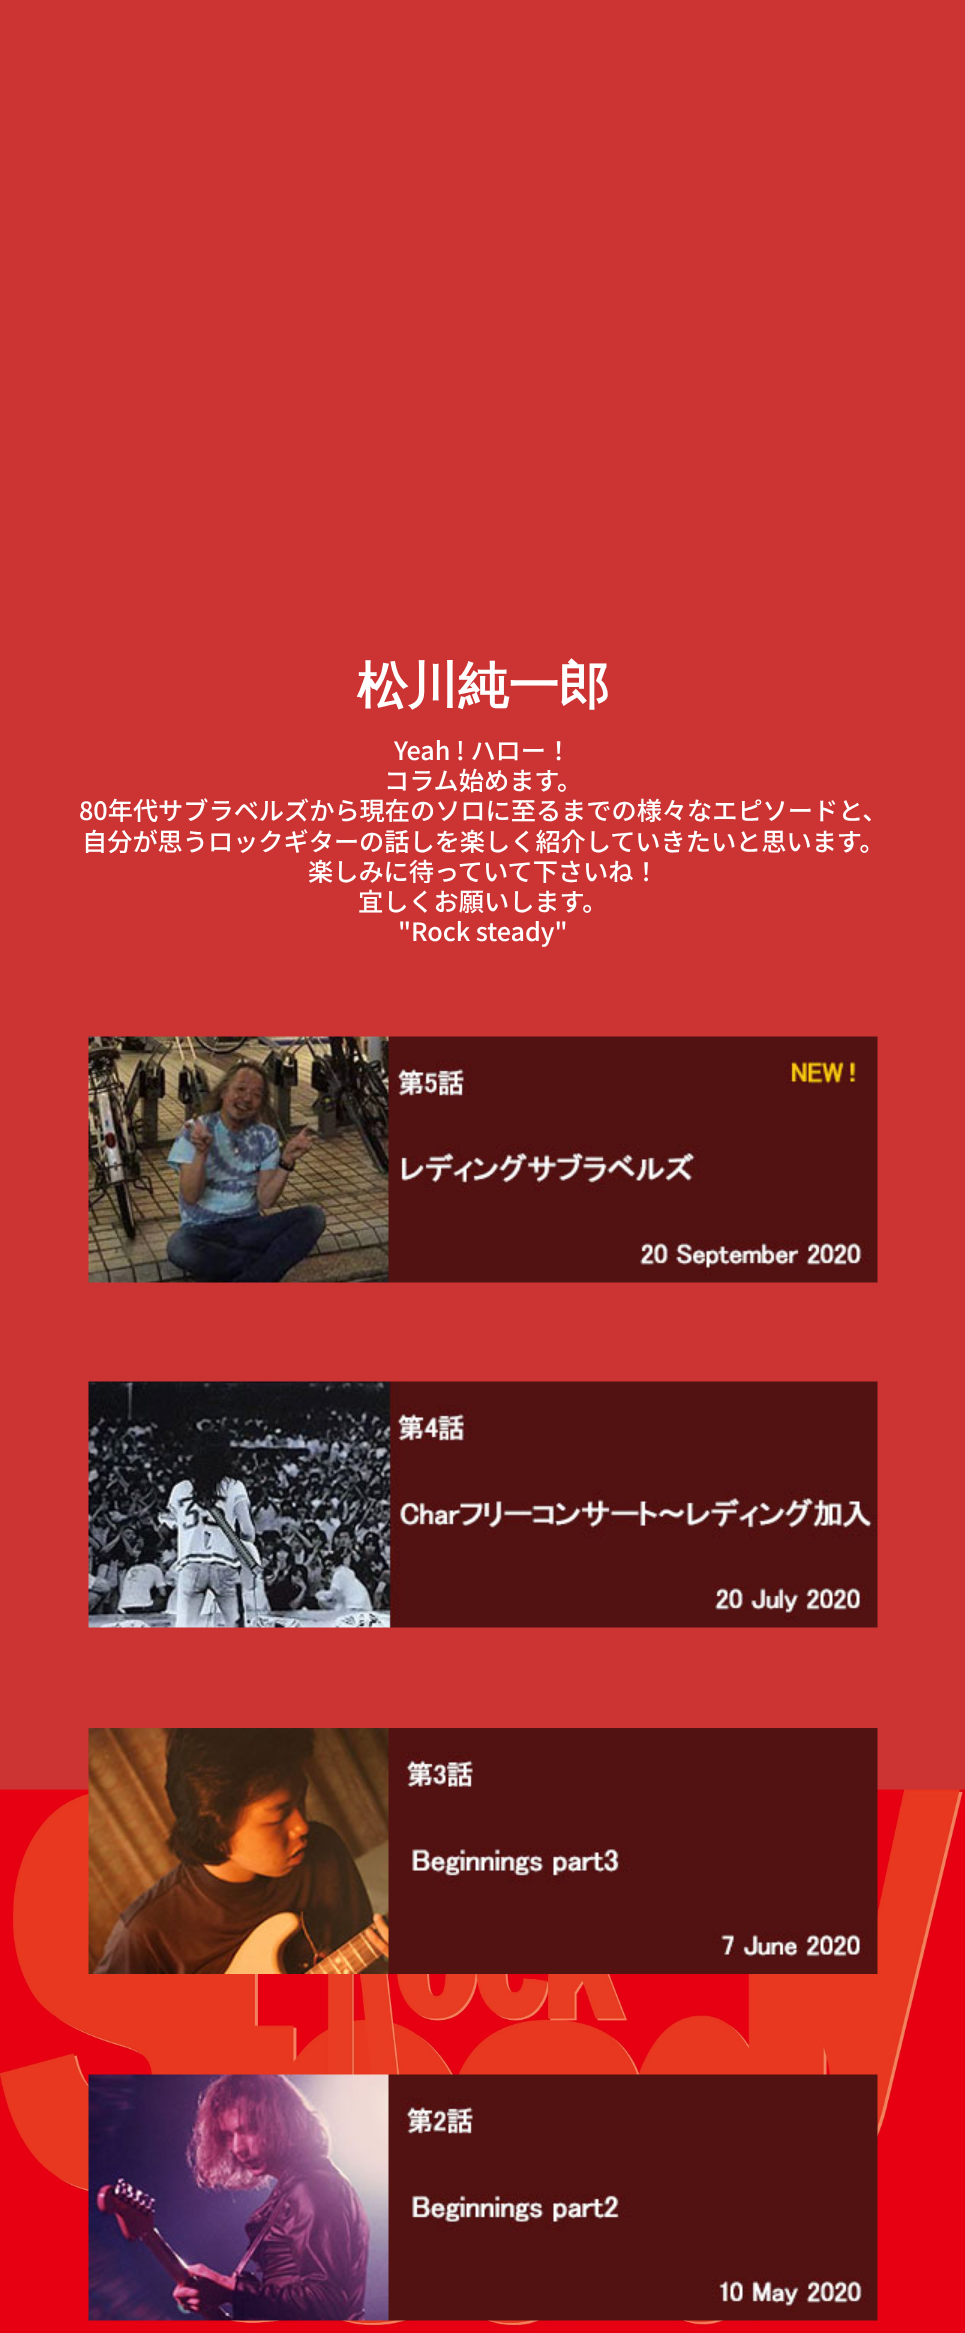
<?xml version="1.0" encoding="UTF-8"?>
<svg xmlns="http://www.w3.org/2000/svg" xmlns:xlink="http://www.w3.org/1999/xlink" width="965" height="2333">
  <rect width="100%" height="100%" fill="#cc3333" />
  <image x="88" y="1036" width="790" height="247" xlink:href="image1.png" />
  <image x="88" y="1381" width="790" height="247" xlink:href="image2.png" />
  <image x="0" y="1789" width="965" height="544" xlink:href="image5.png" />
  <image x="88" y="1728" width="790" height="246" xlink:href="image3.png" />
  <image x="88" y="2074" width="790" height="247" xlink:href="image4.png" />
  <text x="357" y="703" style="font-family: WenQuanYi Zen Hei; font-size: 50.5px; font-weight: bold; fill: #ffffff">松川純一郎</text>
  <text x="394" y="760" style="font-family: Noto Sans JP; font-size: 25.2px; font-weight: 500; fill: #ffffff">Yeah ! ハロー！</text>
  <text x="384" y="790" style="font-family: Noto Sans JP; font-size: 25.2px; font-weight: 500; fill: #ffffff">コラム始めます。</text>
  <text x="79" y="820" style="font-family: Noto Sans JP; font-size: 25.2px; font-weight: 500; fill: #ffffff">80年代サブラベルズから現在のソロに至るまでの様々なエピソードと、</text>
  <text x="82" y="851" style="font-family: Noto Sans JP; font-size: 25.2px; font-weight: 500; fill: #ffffff">自分が思うロックギターの話しを楽しく紹介していきたいと思います。</text>
  <text x="308" y="881" style="font-family: Noto Sans JP; font-size: 25.2px; font-weight: 500; fill: #ffffff">楽しみに待っていて下さいね！</text>
  <text x="358" y="911" style="font-family: Noto Sans JP; font-size: 25.2px; font-weight: 500; fill: #ffffff">宜しくお願いします。</text>
  <text x="398" y="941" style="font-family: Noto Sans JP; font-size: 25.2px; font-weight: 500; fill: #ffffff">"Rock steady"</text>
</svg>
